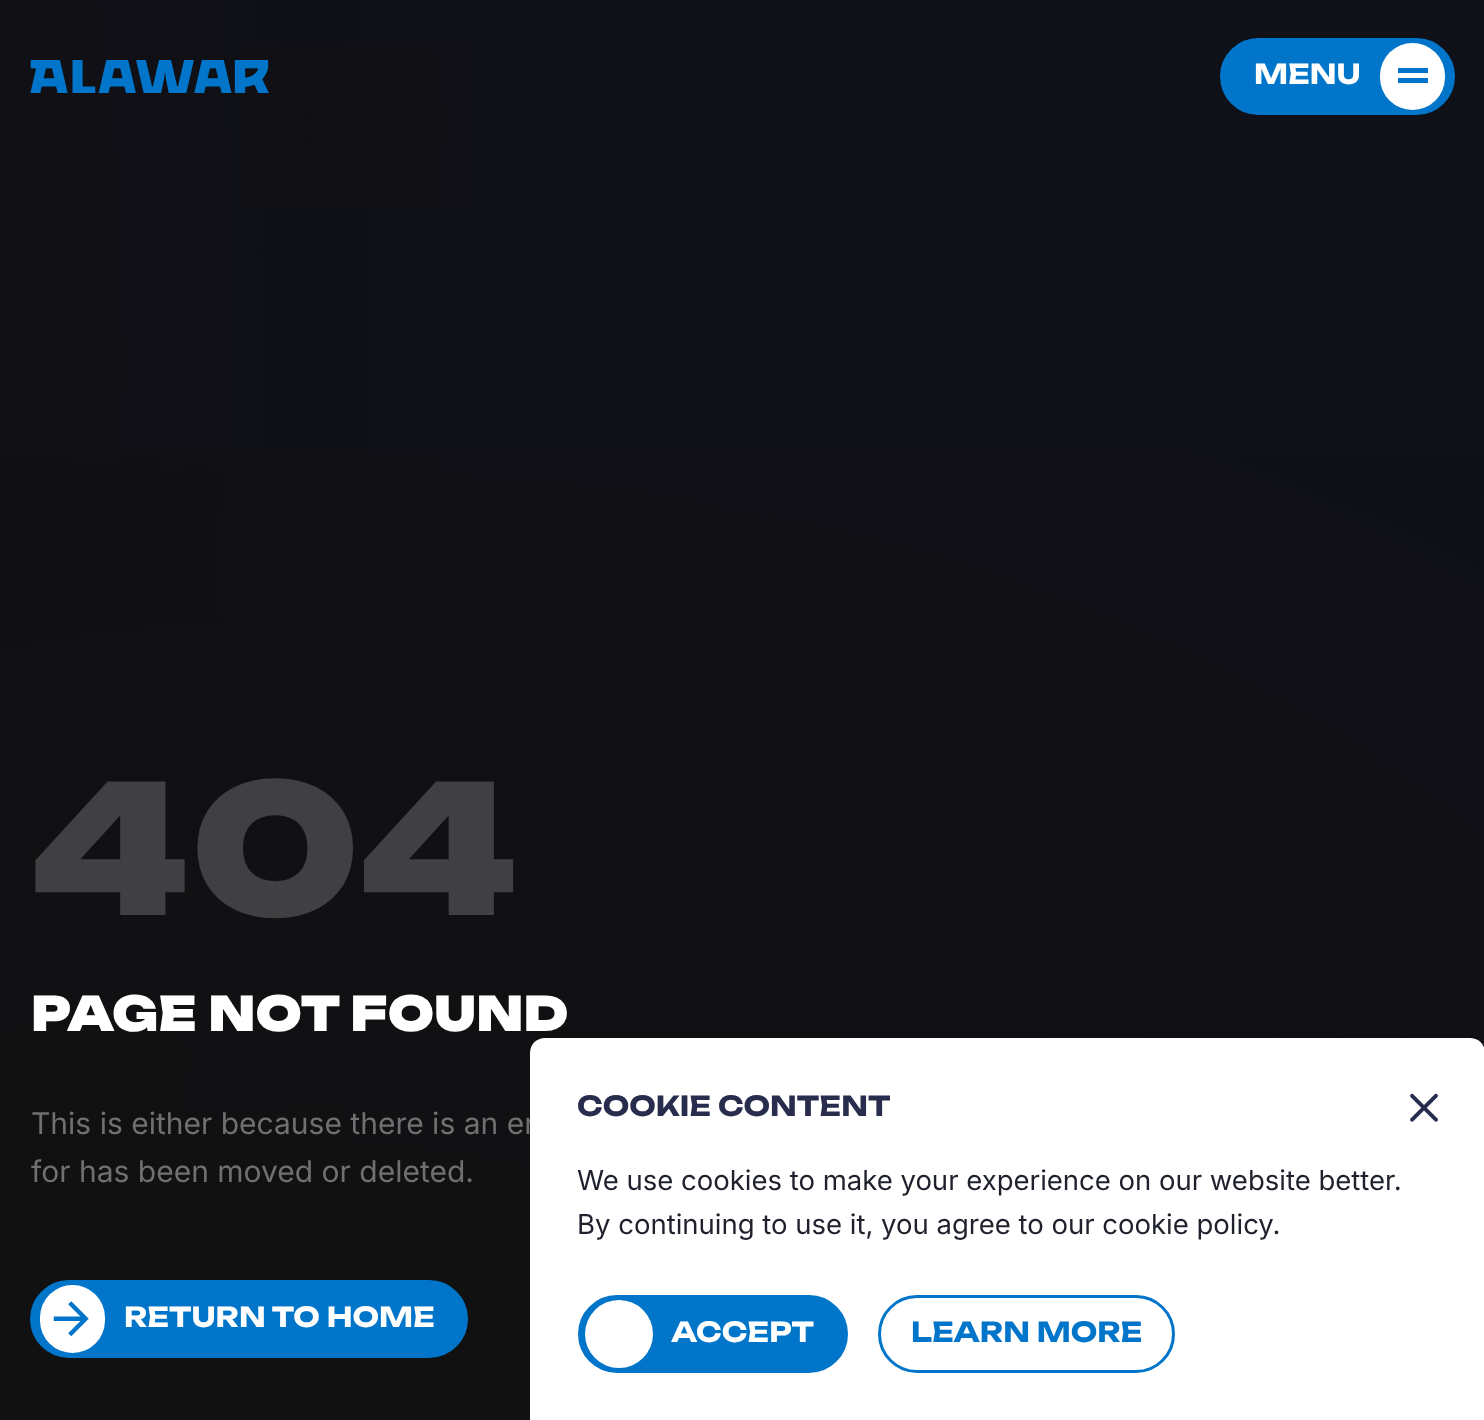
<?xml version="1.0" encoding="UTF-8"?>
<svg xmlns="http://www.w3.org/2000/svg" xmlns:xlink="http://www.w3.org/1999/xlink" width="1484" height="1420">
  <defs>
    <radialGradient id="g1" gradientUnits="userSpaceOnUse" cx="0" cy="0" r="1" gradientTransform="matrix(431 0 0 2300 15 369)"><stop offset="0" stop-color="#101015" /><stop offset="1" stop-color="#0f1018" /></radialGradient>
    <radialGradient id="g2" gradientUnits="userSpaceOnUse" cx="0" cy="0" r="1" gradientTransform="matrix(446 0 0 270 327 128)"><stop offset="0" stop-color="#111111" stop-opacity="0.46" /><stop offset="1" stop-color="#111111" stop-opacity="0" /></radialGradient>
    <radialGradient id="g3" gradientUnits="userSpaceOnUse" cx="0" cy="0" r="1" gradientTransform="matrix(2213 0 0 1505 356 1477)"><stop offset="0" stop-color="#111111" /><stop offset="1" stop-color="#111111" stop-opacity="0" /></radialGradient>
  </defs>
  <rect width="100%" height="100%" fill="#ffffff" />
  <rect width="1484" height="1420" fill="url(#g1)" />
  <rect x="244" y="47" width="223" height="161" fill="url(#g2)" />
  <image x="30" y="60" width="239" height="33" xlink:href="image1.png" />
  <rect x="1221.5" y="39.5" width="232" height="74" rx="37" fill="#0075c9" stroke="#0075c9" stroke-width="3" />
  <rect x="1380" y="43" width="65" height="67" rx="32.5" fill="#ffffff" />
  <rect x="1398" y="68" width="30" height="5" fill="#0075c9" />
  <rect x="1398" y="78" width="30" height="5" fill="#0075c9" />
  <rect y="450" width="1484" height="970" fill="url(#g3)" />
  <rect x="31.5" y="1281.5" width="435" height="75" rx="37.5" fill="#0075c9" stroke="#0075c9" stroke-width="3" />
  <rect x="40" y="1285" width="65" height="68" rx="32.5" fill="#ffffff" />
  <image x="53" y="1301" width="36" height="36" xlink:href="image2.png" />
  <text x="1254" y="84" style="font-family: Unbounded; font-size: 27.5px; font-weight: bold; fill: #ffffff">MENU</text>
  <text x="31" y="915" style="font-family: Unbounded; font-size: 178px; font-weight: 900; fill: #404043">404</text>
  <text x="31" y="1031" style="font-family: Unbounded; font-size: 47.5px; font-weight: 900; fill: #ffffff">PAGE NOT FOUND</text>
  <text x="31" y="1134" style="font-family: Inter; font-size: 30px; fill: #707072">This is either because there is an er</text>
  <text x="31" y="1182" style="font-family: Inter; font-size: 30px; fill: #707072">for has been moved or deleted.</text>
  <text x="124" y="1327" style="font-family: Unbounded; font-size: 27.5px; font-weight: bold; fill: #ffffff">RETURN TO HOME</text>
  <path d="M 545 1038 h 925 c 8.5 0 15 6.5 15 15 v 367 h -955 v -367 c 0 -8.5 6.5 -15 15 -15 z" fill="#ffffff" />
  <text x="577" y="1116" style="font-family: Unbounded; font-size: 27.5px; font-weight: bold; fill: #282c4d">COOKIE CONTENT</text>
  <path d="M 1413.5 1094.5 l 24 24 c 0.5 0.5 0.5 2 0 2.5 c -1 1 -2 1 -3 0 l -24 -24 c -0.5 -0.5 -0.5 -2 0 -2.5 c 1 -1 2 -1 3 0 z" fill="#282c4d" />
  <path d="M 1410.5 1118.5 l 24 -24 c 1 -1 2 -1 3 0 c 0.5 0.5 0.5 2 0 2.5 l -24 24 c -1 1 -2 1 -3 0 c -0.5 -0.5 -0.5 -2 0 -2.5 z" fill="#282c4d" />
  <text x="577" y="1190" style="font-family: Inter; font-size: 27.5px; fill: #1f212d">We use cookies to make your experience on our website better.</text>
  <text x="577" y="1234" style="font-family: Inter; font-size: 27.5px; fill: #1f212d">By continuing to use it, you agree to our cookie policy.</text>
  <rect x="579.5" y="1296.5" width="267" height="75" rx="37.5" fill="#0075c9" stroke="#0075c9" stroke-width="3" />
  <circle cx="619" cy="1334" r="34" fill="#ffffff" />
  <text x="671" y="1342" style="font-family: Unbounded; font-size: 27.5px; font-weight: bold; fill: #ffffff">ACCEPT</text>
  <rect x="879.5" y="1296.5" width="294" height="75" rx="37.5" fill="none" stroke="#0075c9" stroke-width="3" />
  <text x="911" y="1342" style="font-family: Unbounded; font-size: 27.5px; font-weight: bold; fill: #0075c9">LEARN MORE</text>
</svg>
